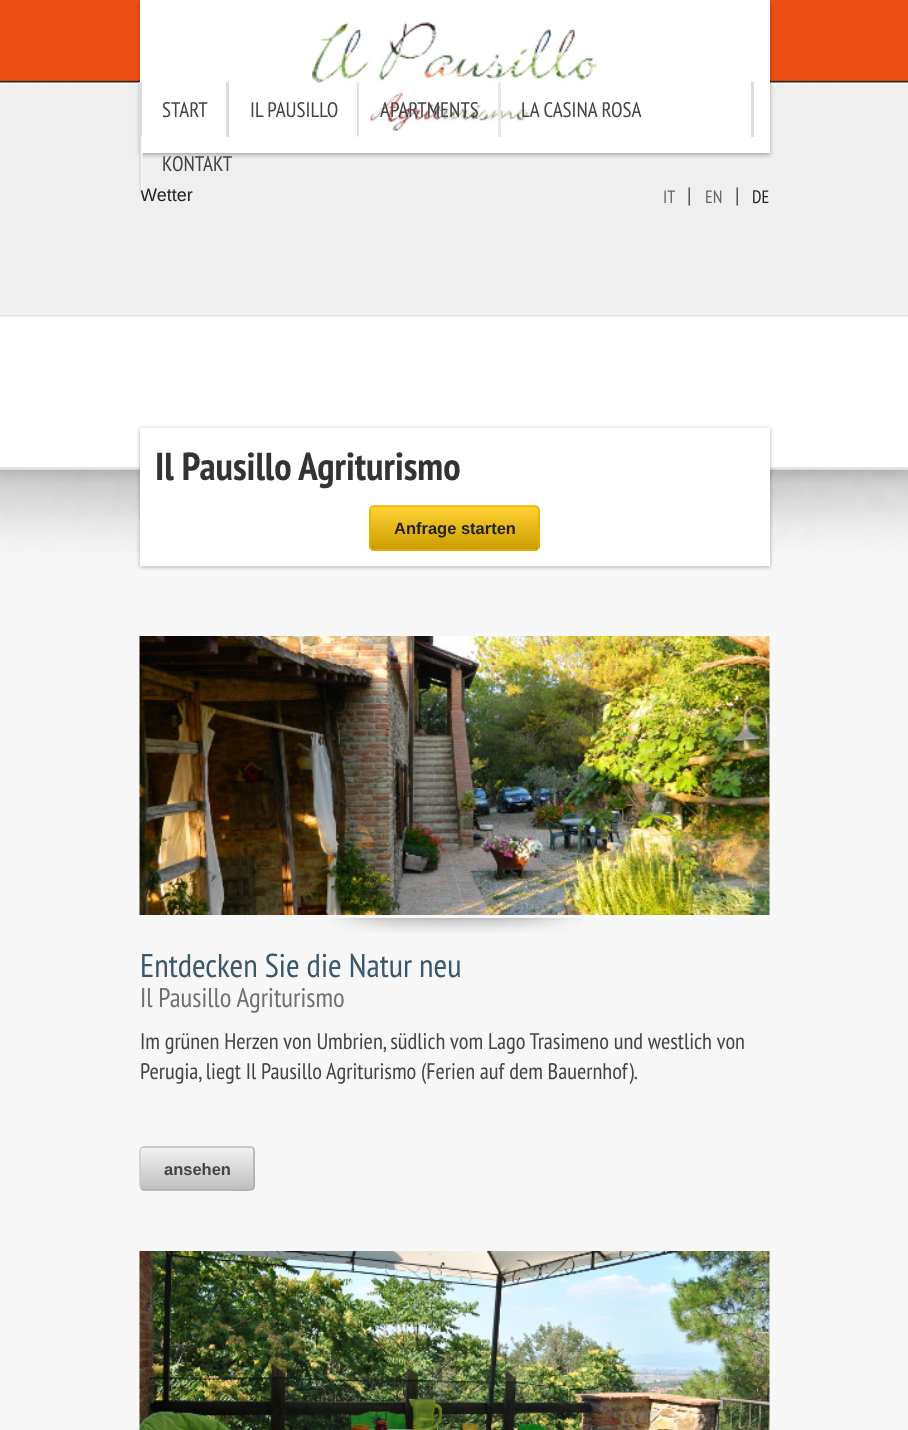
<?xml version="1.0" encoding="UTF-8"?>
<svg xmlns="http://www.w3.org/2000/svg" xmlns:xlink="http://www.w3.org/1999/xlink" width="908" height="1430">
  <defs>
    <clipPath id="clip1"><rect x="369" y="506" width="171" height="45" rx="5" /></clipPath>
    <linearGradient id="g1" gradientUnits="userSpaceOnUse" x1="455" y1="507" x2="455" y2="549"><stop offset="0" stop-color="#ffffff" stop-opacity="0.2" /><stop offset="1" stop-color="#000000" stop-opacity="0.2" /></linearGradient>
    <linearGradient id="g2" gradientUnits="userSpaceOnUse" x1="455" y1="549" x2="455" y2="591"><stop offset="0" stop-color="#ffffff" stop-opacity="0.2" /><stop offset="1" stop-color="#000000" stop-opacity="0.2" /></linearGradient>
    <clipPath id="clip2"><rect x="140" y="1146" width="115" height="45" rx="5" /></clipPath>
    <linearGradient id="g3" gradientUnits="userSpaceOnUse" x1="197" y1="1106" x2="197" y2="1148"><stop offset="0" stop-color="#ffffff" stop-opacity="0.2" /><stop offset="1" stop-color="#000000" stop-opacity="0.2" /></linearGradient>
    <linearGradient id="g4" gradientUnits="userSpaceOnUse" x1="197" y1="1148" x2="197" y2="1190"><stop offset="0" stop-color="#ffffff" stop-opacity="0.2" /><stop offset="1" stop-color="#000000" stop-opacity="0.2" /></linearGradient>
  </defs>
  <rect width="100%" height="100%" fill="#ffffff" />
  <rect y="84" width="908" height="231" fill="#efefef" />
  <image x="0" y="0" width="908" height="84" xlink:href="image1.png" />
  <rect y="315" width="908" height="2" fill="#e6e6e6" />
  <rect x="140" y="2" width="630" height="153" fill="#000000" fill-opacity="0.3" filter="blur(2px)" />
  <rect x="140" width="630" height="153" fill="#ffffff" />
  <image x="312" y="22" width="285" height="109" xlink:href="image2.png" />
  <rect x="751" y="82" width="3" height="55" fill="#dcdcdc" />
  <rect x="139" y="82" width="3" height="55" fill="#dcdcdc" />
  <rect x="226" y="82" width="3" height="55" fill="#dcdcdc" />
  <image x="357" y="82" width="2" height="55" xlink:href="image3.png" />
  <rect x="498" y="82" width="3" height="55" fill="#e8e8e8" />
  <image x="688" y="187" width="2" height="19" xlink:href="image5.png" />
  <image x="736" y="187" width="2" height="19" xlink:href="image5.png" />
  <rect y="469" width="908" height="961" fill="#f7f7f7" />
  <image x="0" y="469" width="908" height="83" xlink:href="image6.png" />
  <rect y="467" width="908" height="2" fill="#e6e6e6" />
  <rect x="140" y="429" width="630" height="138" fill="#000000" fill-opacity="0.3" filter="blur(2px)" />
  <rect x="140" y="428" width="630" height="138" fill="#ffffff" />
  <rect x="369" y="506" width="171" height="45" rx="5" fill="#ffc600" />
  <g clip-path="url(#clip1)">
    <rect x="369" y="507" width="171" height="42" fill="url(#g1)" />
    <rect x="369" y="549" width="171" height="2" fill="url(#g2)" />
  </g>
  <path d="M 538 548.5 c -0.5 1 -1.5 1.5 -2.5 1.5 h -162 c -1 0 -2 -0.5 -2.5 -1.5" fill="none" stroke="#d4a400" stroke-width="1.5" />
  <path d="M 371 548.5 c -2.5 -2.5 -1 -11.5 -1 -14.5 v -18 c 0 -3 -1.5 -9.5 3.5 -10 h 162 c 5 0.5 3.5 7 3.5 10 v 18 c 0 3 1.5 12 -1 14.5" fill="none" stroke="#e7b300" stroke-width="1.5" />
  <image x="139" y="636" width="631" height="279" xlink:href="image7.png" />
  <image x="330" y="918" width="253" height="15" xlink:href="image8.png" />
  <rect x="140" y="1146" width="115" height="45" rx="5" fill="#eeeeee" />
  <g clip-path="url(#clip2)">
    <rect x="140" y="1146" width="115" height="2" fill="url(#g3)" />
    <rect x="140" y="1148" width="115" height="42" fill="url(#g4)" />
  </g>
  <path d="M 253 1148 c 2 2 1 6.5 1 8.5 v 12 c 0 25.5 5 21.5 -21 21.5 h -89 l -2.5 -1" fill="none" stroke="#aaaaaa" stroke-width="1.5" />
  <path d="M 141.5 1189 c -2 -2 -1.5 -6.5 -1.5 -8.5 v -12 c 0 -25.5 -4.5 -21.5 22 -21.5 h 88.5 l 2.5 1" fill="none" stroke="#cccccc" stroke-width="1.5" />
  <image x="139" y="1251" width="631" height="179" xlink:href="image9.png" />
  <text x="162" y="117" style="font-family: PT Sans Narrow; font-size: 21px; fill: #444444">START</text>
  <text x="250" y="117" style="font-family: PT Sans Narrow; font-size: 21px; fill: #444444">IL PAUSILLO</text>
  <text x="380" y="117" style="font-family: PT Sans Narrow; font-size: 21px; fill: #444444">APARTMENTS</text>
  <text x="521" y="117" style="font-family: PT Sans Narrow; font-size: 21px; fill: #444444">LA CASINA ROSA</text>
  <text x="162" y="171" style="font-family: PT Sans Narrow; font-size: 21px; fill: #444444">KONTAKT</text>
  <text x="140" y="201" style="font-family: Liberation Sans; font-size: 18px; fill: #222222">Wetter</text>
  <image x="139" y="136" width="4" height="55" xlink:href="image4.png" />
  <text x="663" y="203" style="font-family: PT Sans Narrow; font-size: 18px; fill: #666666">IT</text>
  <text x="705" y="203" style="font-family: PT Sans Narrow; font-size: 18px; fill: #666666">EN</text>
  <text x="752" y="203" style="font-family: PT Sans Narrow; font-size: 18px; fill: #222222">DE</text>
  <text x="155" y="480" style="font-family: PT Sans Narrow; font-size: 39px; font-weight: bold; fill: #333333">Il Pausillo Agriturismo</text>
  <text x="394" y="534" style="font-family: Liberation Sans; font-size: 16.5px; font-weight: bold; fill: #222222">Anfrage starten</text>
  <text x="140" y="977" style="font-family: PT Sans Narrow; font-size: 33px; fill: #3b576b">Entdecken Sie die Natur neu</text>
  <text x="140" y="1007" style="font-family: PT Sans Narrow; font-size: 27px; fill: #707070">Il Pausillo Agriturismo</text>
  <text x="140" y="1049" style="font-family: PT Sans Narrow; font-size: 22.5px; fill: #444444">Im grünen Herzen von Umbrien, südlich vom Lago Trasimeno und westlich von</text>
  <text x="140" y="1079" style="font-family: PT Sans Narrow; font-size: 22.5px; fill: #444444">Perugia, liegt Il Pausillo Agriturismo (Ferien auf dem Bauernhof).</text>
  <text x="164" y="1175" style="font-family: Liberation Sans; font-size: 16.5px; font-weight: bold; fill: #444444">ansehen</text>
</svg>
